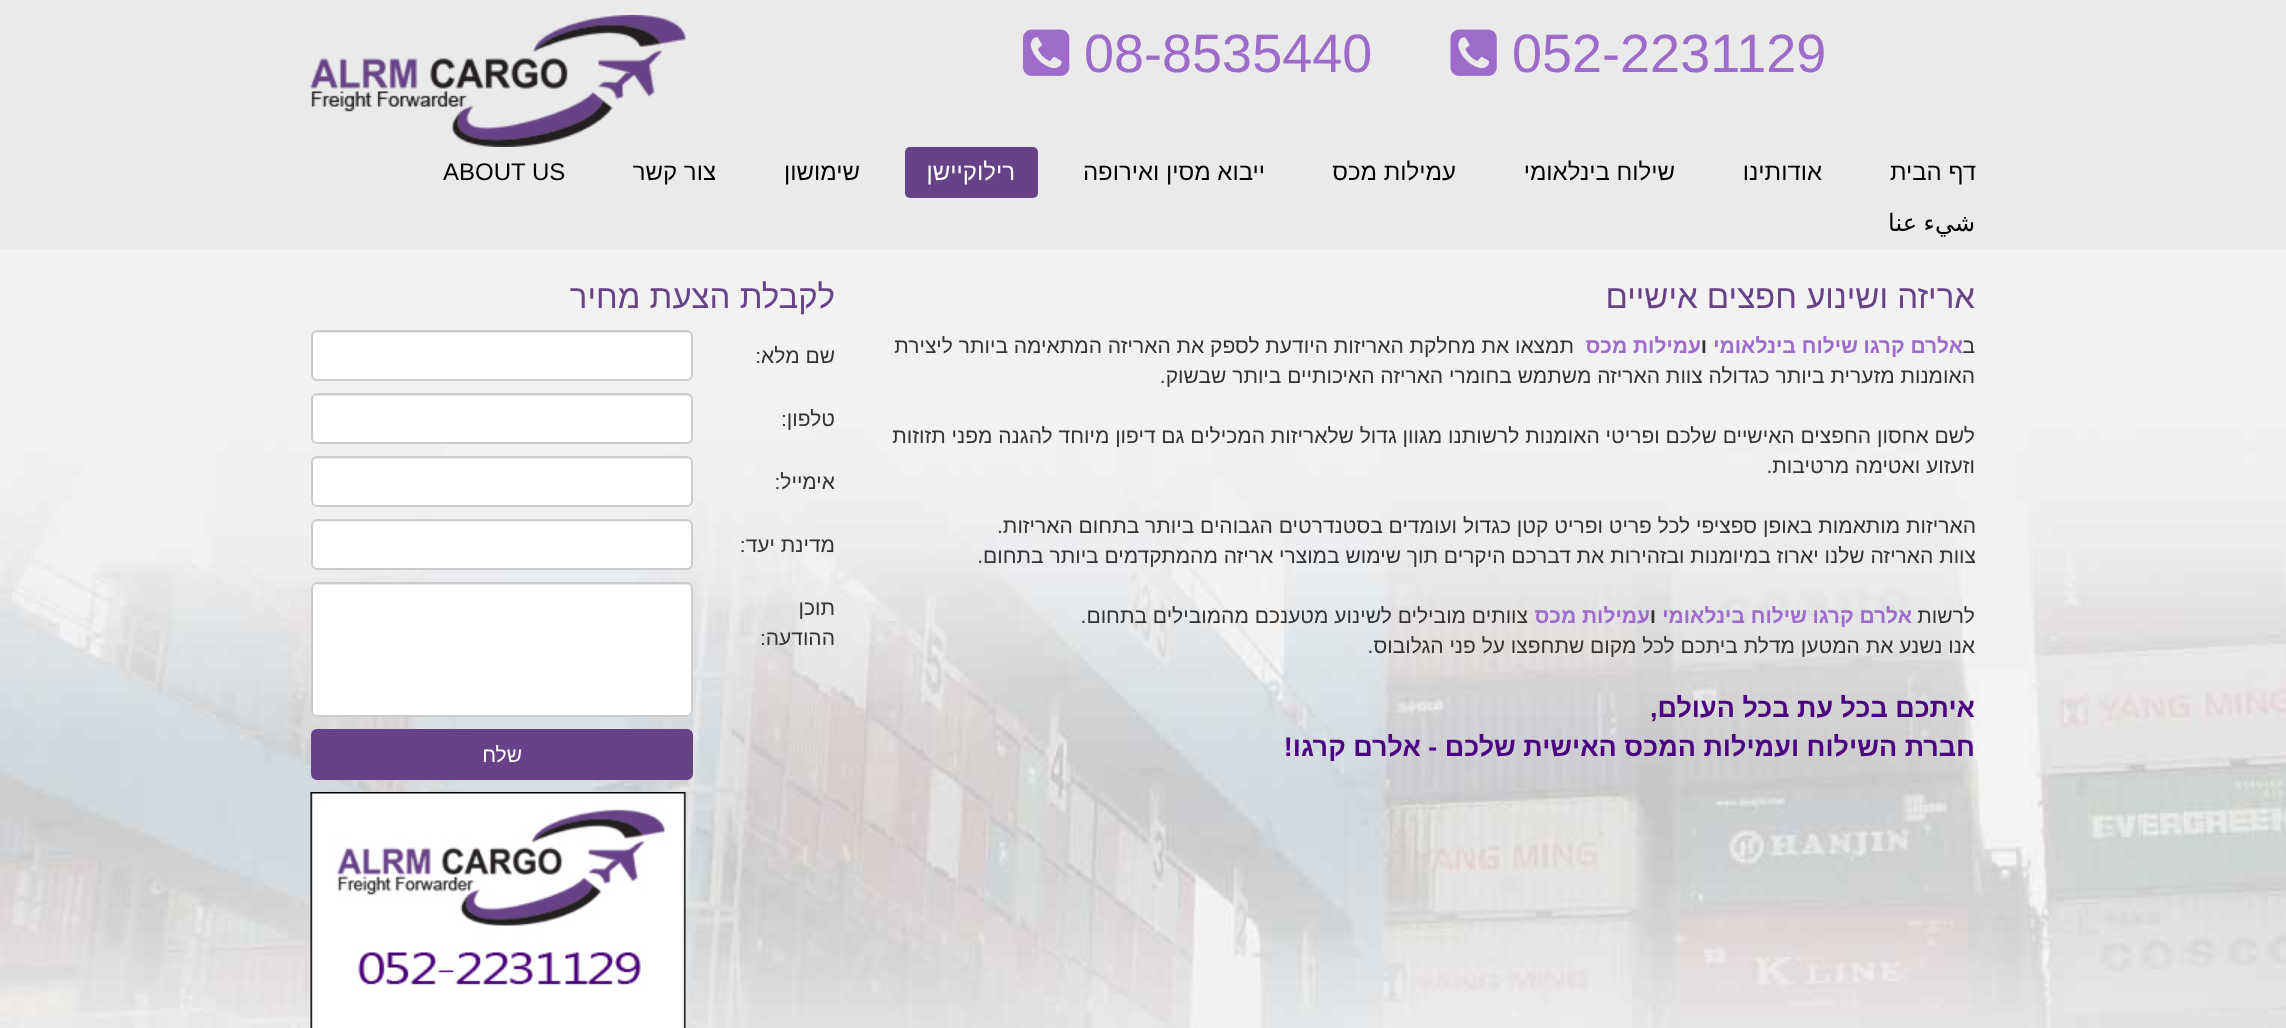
<?xml version="1.0" encoding="UTF-8"?>
<svg xmlns="http://www.w3.org/2000/svg" xmlns:xlink="http://www.w3.org/1999/xlink" width="2286" height="1028">
  <rect width="100%" height="100%" fill="#eaeaea" />
  <image x="1450" y="29" width="47" height="47" xlink:href="image1.png" />
  <image x="1023" y="29" width="47" height="47" xlink:href="image2.png" />
  <image x="310" y="15" width="376" height="132" xlink:href="image3.png" />
  <rect x="905" y="147" width="133" height="51" rx="5" fill="#674287" />
  <image x="0" y="249" width="2286" height="779" xlink:href="image4.png" />
  <rect x="311" y="330" width="382" height="51" rx="6" fill="#ffffff" />
  <path d="M 316 333 h 371 c 2 0 5 2 5 5 v -1 c 0 -3 -2 -5 -5 -5 h -370 c -3 0 -5 2 -5 5 v 1 c 0 -3 2 -5 4 -5 z" fill="#ececec" />
  <rect x="312" y="331" width="380" height="49" rx="5" fill="none" stroke="#cccccc" stroke-width="2" />
  <rect x="311" y="393" width="382" height="51" rx="6" fill="#ffffff" />
  <path d="M 316 396 h 371 c 2 0 5 2 5 4 c 0 -3 -2 -5 -5 -5 h -370 c -3 0 -5 2 -5 5 c 0 -2 2 -4 4 -4 z" fill="#ececec" />
  <rect x="312" y="394" width="380" height="49" rx="5" fill="none" stroke="#cccccc" stroke-width="2" />
  <rect x="311" y="456" width="382" height="51" rx="6" fill="#ffffff" />
  <path d="M 316 459 h 371 c 2 0 5 2 5 5 v -1 c 0 -3 -2 -5 -5 -5 h -370 c -3 0 -5 2 -5 5 v 1 c 0 -3 2 -5 4 -5 z" fill="#ececec" />
  <rect x="312" y="457" width="380" height="49" rx="5" fill="none" stroke="#cccccc" stroke-width="2" />
  <rect x="311" y="519" width="382" height="51" rx="6" fill="#ffffff" />
  <path d="M 316 522 h 371 c 2 0 5 2 5 4 c 0 -3 -2 -5 -5 -5 h -370 c -3 0 -5 2 -5 5 c 0 -2 2 -4 4 -4 z" fill="#ececec" />
  <rect x="312" y="520" width="380" height="49" rx="5" fill="none" stroke="#cccccc" stroke-width="2" />
  <rect x="311" y="582" width="382" height="135" rx="6" fill="#ffffff" />
  <path d="M 316 585 h 371 c 2 0 5 2 5 5 v -1 c 0 -3 -2 -5 -5 -5 h -370 c -3 0 -5 2 -5 5 v 1 c 0 -3 2 -5 4 -5 z" fill="#ececec" />
  <rect x="312" y="583" width="380" height="133" rx="5" fill="none" stroke="#cccccc" stroke-width="2" />
  <rect x="312" y="730" width="380" height="49" rx="5" fill="#674287" stroke="#674287" stroke-width="2" />
  <image x="310" y="792" width="376" height="236" xlink:href="image5.png" />
  <text x="1512" y="72" style="font-family: Liberation Sans; font-size: 54px; fill: #9e6bca">052-2231129</text>
  <text x="1084" y="72" style="font-family: Liberation Sans; font-size: 54px; fill: #9e6bca">08-8535440</text>
  <text x="1976" y="180" style="font-family: Liberation Sans; font-size: 24px; direction: rtl; fill: #000000">דף הבית</text>
  <text x="1822" y="180" style="font-family: Liberation Sans; font-size: 24px; direction: rtl; fill: #000000">אודותינו</text>
  <text x="1675" y="180" style="font-family: Liberation Sans; font-size: 24px; direction: rtl; fill: #000000">שילוח בינלאומי</text>
  <text x="1456" y="180" style="font-family: Liberation Sans; font-size: 24px; direction: rtl; fill: #000000">עמילות מכס</text>
  <text x="1265" y="180" style="font-family: Liberation Sans; font-size: 24px; direction: rtl; fill: #000000">ייבוא מסין ואירופה</text>
  <text x="1015" y="180" style="font-family: Liberation Sans; font-size: 24px; direction: rtl; fill: #ffffff">רילוקיישן</text>
  <text x="860" y="180" style="font-family: Liberation Sans; font-size: 24px; direction: rtl; fill: #000000">שימושון</text>
  <text x="716" y="180" style="font-family: Liberation Sans; font-size: 24px; direction: rtl; fill: #000000">צור קשר</text>
  <text x="443" y="180" style="font-family: Liberation Sans; font-size: 24px; fill: #000000">ABOUT US</text>
  <text x="1975" y="231" word-spacing="-1" style="font-family: DejaVu Sans; font-size: 24px; direction: rtl; fill: #000000">شيء عنا</text>
  <text x="1975" y="308" style="font-family: Liberation Sans; font-size: 33px; direction: rtl; fill: #674287">אריזה ושינוע חפצים אישיים</text>
  <text x="1975" y="353" style="font-family: Liberation Sans; font-size: 21px; direction: rtl; fill: #333333">ב</text>
  <text x="1963" y="353" style="font-family: Liberation Sans; font-size: 21px; font-weight: bold; direction: rtl; fill: #9e6bca">אלרם קרגו</text>
  <text x="1858" y="353" style="font-family: Liberation Sans; font-size: 21px; font-weight: bold; direction: rtl; fill: #9e6bca">שילוח בינלאומי</text>
  <text x="1707" y="353" style="font-family: Liberation Sans; font-size: 21px; font-weight: bold; direction: rtl; fill: #333333">ו</text>
  <text x="1701" y="353" style="font-family: Liberation Sans; font-size: 21px; font-weight: bold; direction: rtl; fill: #9e6bca">עמילות מכס</text>
  <text x="1574" y="353" style="font-family: Liberation Sans; font-size: 21px; direction: rtl; fill: #333333">תמצאו את מחלקת האריזות היודעת לספק את האריזה המתאימה ביותר ליצירת</text>
  <text x="1975" y="383" style="font-family: Liberation Sans; font-size: 21px; direction: rtl; fill: #333333">האומנות מזערית ביותר כגדולה צוות האריזה משתמש בחומרי האריזה האיכותיים ביותר שבשוק.</text>
  <text x="1975" y="443" style="font-family: Liberation Sans; font-size: 21px; direction: rtl; fill: #333333">לשם אחסון החפצים האישיים שלכם ופריטי האומנות לרשותנו מגוון גדול שלאריזות המכילים גם דיפון מיוחד להגנה מפני תזוזות</text>
  <text x="1975" y="473" style="font-family: Liberation Sans; font-size: 21px; direction: rtl; fill: #333333">וזעזוע ואטימה מרטיבות.</text>
  <text x="1976" y="533" style="font-family: Liberation Sans; font-size: 21px; direction: rtl; fill: #333333">האריזות מותאמות באופן ספציפי לכל פריט ופריט קטן כגדול ועומדים בסטנדרטים הגבוהים ביותר בתחום האריזות.</text>
  <text x="1976" y="563" style="font-family: Liberation Sans; font-size: 21px; direction: rtl; fill: #333333">צוות האריזה שלנו יארוז במיומנות ובזהירות את דברכם היקרים תוך שימוש במוצרי אריזה מהמתקדמים ביותר בתחום.</text>
  <text x="1975" y="623" style="font-family: Liberation Sans; font-size: 21px; direction: rtl; fill: #333333">לרשות</text>
  <text x="1912" y="623" style="font-family: Liberation Sans; font-size: 21px; font-weight: bold; direction: rtl; fill: #9e6bca">אלרם קרגו</text>
  <text x="1807" y="623" style="font-family: Liberation Sans; font-size: 21px; font-weight: bold; direction: rtl; fill: #9e6bca">שילוח בינלאומי</text>
  <text x="1656" y="623" style="font-family: Liberation Sans; font-size: 21px; font-weight: bold; direction: rtl; fill: #333333">ו</text>
  <text x="1650" y="623" style="font-family: Liberation Sans; font-size: 21px; font-weight: bold; direction: rtl; fill: #9e6bca">עמילות מכס</text>
  <text x="1528" y="623" style="font-family: Liberation Sans; font-size: 21px; direction: rtl; fill: #333333">צוותים מובילים לשינוע מטענכם מהמובילים בתחום.</text>
  <text x="1975" y="653" style="font-family: Liberation Sans; font-size: 21px; direction: rtl; fill: #333333">אנו נשנע את המטען מדלת ביתכם לכל מקום שתחפצו על פני הגלובוס.</text>
  <text x="1975" y="717" style="font-family: Liberation Sans; font-size: 27px; font-weight: bold; direction: rtl; fill: #4b0082">איתכם בכל עת בכל העולם,</text>
  <text x="1975" y="756" style="font-family: Liberation Sans; font-size: 27px; font-weight: bold; direction: rtl; fill: #4b0082">חברת השילוח ועמילות המכס האישית שלכם - אלרם קרגו!</text>
  <text x="835" y="308" style="font-family: Liberation Sans; font-size: 33px; direction: rtl; fill: #674287">לקבלת הצעת מחיר</text>
  <text x="835" y="363" style="font-family: Liberation Sans; font-size: 21px; direction: rtl; fill: #333333">שם מלא:</text>
  <text x="835" y="426" style="font-family: Liberation Sans; font-size: 21px; direction: rtl; fill: #333333">טלפון:</text>
  <text x="835" y="489" style="font-family: Liberation Sans; font-size: 21px; direction: rtl; fill: #333333">אימייל:</text>
  <text x="835" y="552" style="font-family: Liberation Sans; font-size: 21px; direction: rtl; fill: #333333">מדינת יעד:</text>
  <text x="835" y="615" style="font-family: Liberation Sans; font-size: 21px; direction: rtl; fill: #333333">תוכן</text>
  <text x="835" y="645" style="font-family: Liberation Sans; font-size: 21px; direction: rtl; fill: #333333">ההודעה:</text>
  <text x="522" y="762" style="font-family: Liberation Sans; font-size: 21px; direction: rtl; fill: #ffffff">שלח</text>
</svg>
